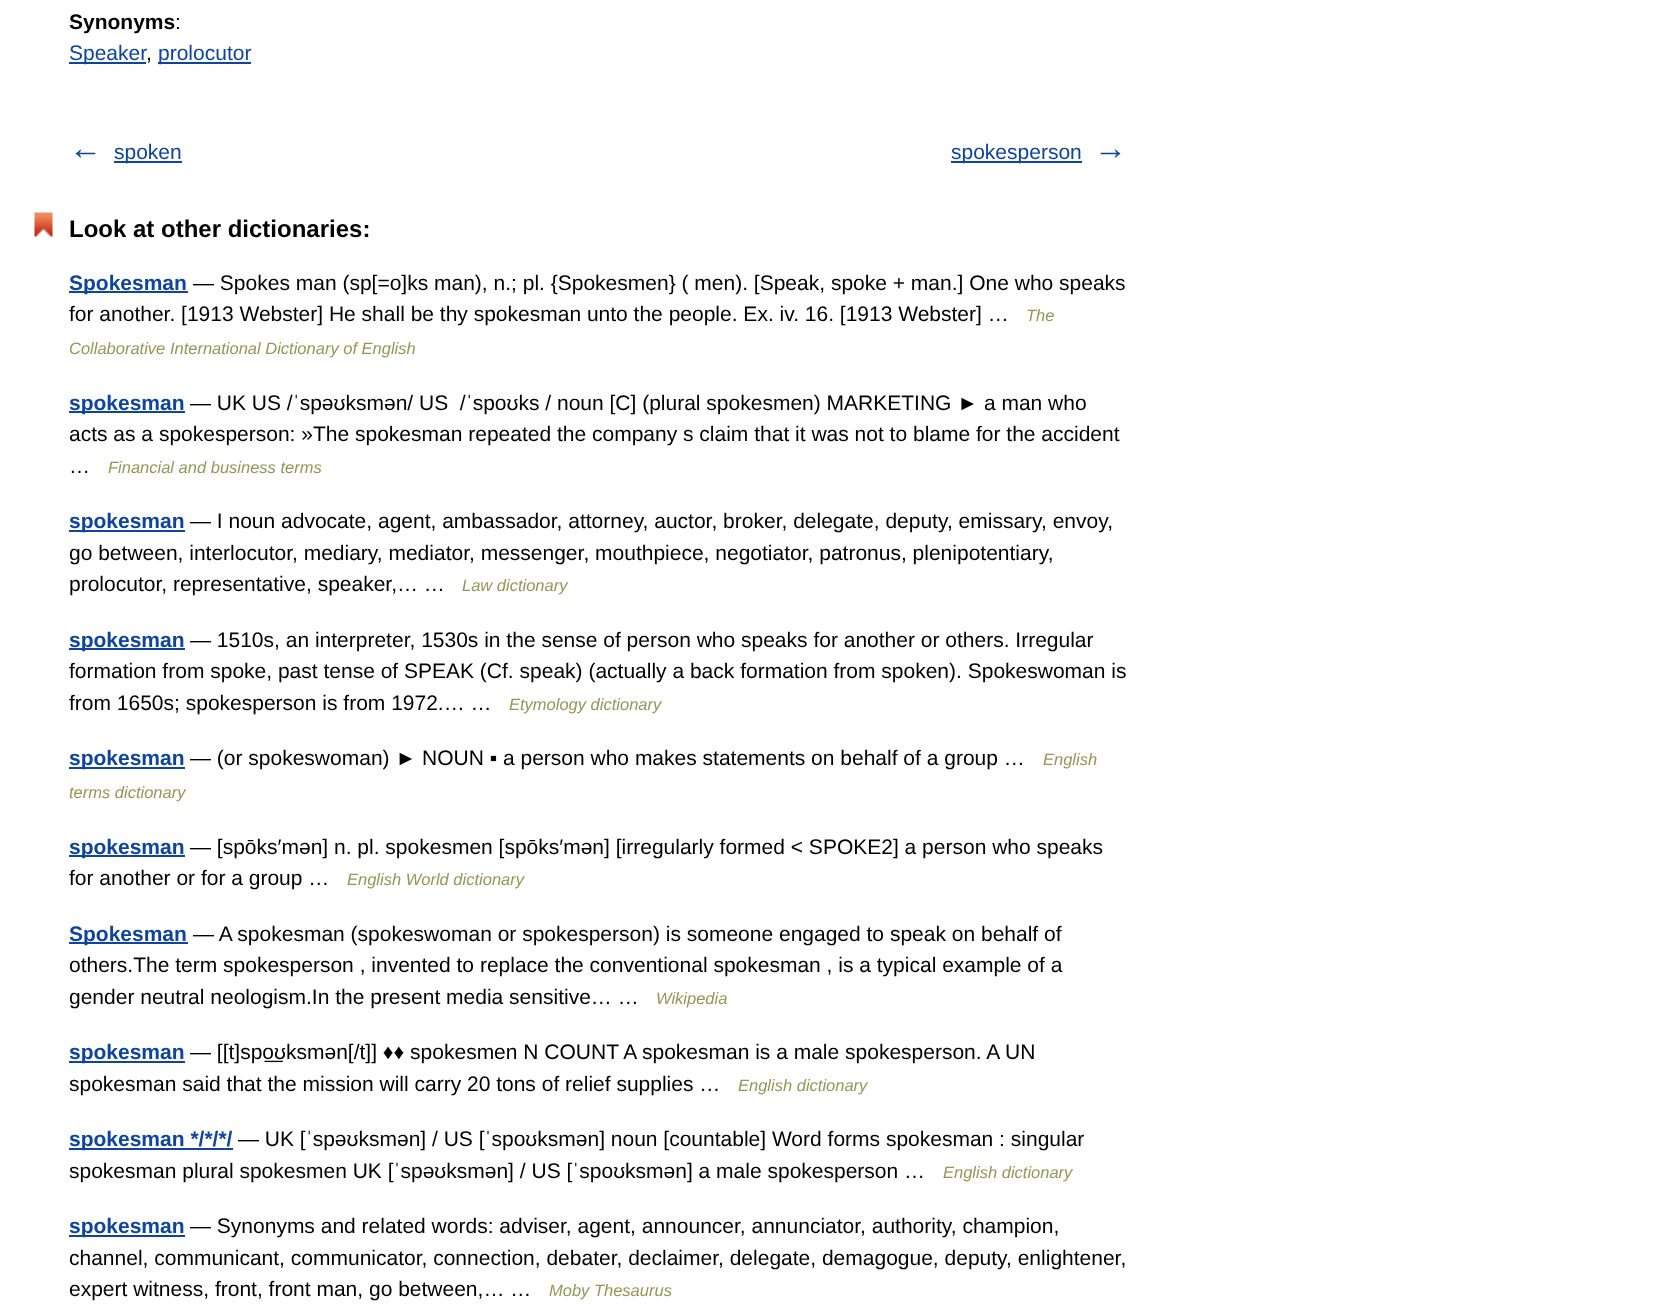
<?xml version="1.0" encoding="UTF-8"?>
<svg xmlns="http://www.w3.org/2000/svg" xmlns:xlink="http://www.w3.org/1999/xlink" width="1668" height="1304">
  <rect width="100%" height="100%" fill="#ffffff" />
  <rect x="69" y="62" width="77" height="2" fill="#0d44a0" />
  <rect x="158" y="62" width="93" height="2" fill="#0d44a0" />
  <rect x="114" y="161" width="68" height="2" fill="#0d44a0" />
  <rect x="951" y="161" width="131" height="2" fill="#0d44a0" />
  <image x="34" y="212" width="19" height="25" xlink:href="image1.png" />
  <rect x="69" y="291" width="119" height="2" fill="#0d44a0" />
  <rect x="69" y="411" width="116" height="2" fill="#0d44a0" />
  <rect x="69" y="530" width="116" height="2" fill="#0d44a0" />
  <rect x="69" y="648" width="116" height="2" fill="#0d44a0" />
  <rect x="69" y="767" width="116" height="2" fill="#0d44a0" />
  <rect x="69" y="855" width="116" height="2" fill="#0d44a0" />
  <rect x="69" y="942" width="119" height="2" fill="#0d44a0" />
  <rect x="69" y="1061" width="116" height="2" fill="#0d44a0" />
  <rect x="69" y="1148" width="164" height="2" fill="#0d44a0" />
  <rect x="69" y="1235" width="116" height="2" fill="#0d44a0" />
  <text x="69" y="29" style="font-family: Liberation Sans; font-size: 21px; font-weight: bold; fill: #000000">Synonyms</text>
  <text x="175" y="29" style="font-family: Liberation Sans; font-size: 21px; fill: #000000">:</text>
  <text x="69" y="60" style="font-family: Liberation Sans; font-size: 21px; fill: #0d44a0">Speaker</text>
  <text x="146" y="60" style="font-family: Liberation Sans; font-size: 21px; fill: #000000">,</text>
  <text x="158" y="60" style="font-family: Liberation Sans; font-size: 21px; fill: #0d44a0">prolocutor</text>
  <text x="69" y="159" style="font-family: Liberation Sans; font-size: 33px; font-weight: bold; fill: #0d44a0">←</text>
  <text x="114" y="159" style="font-family: Liberation Sans; font-size: 21px; fill: #0d44a0">spoken</text>
  <text x="951" y="159" style="font-family: Liberation Sans; font-size: 21px; fill: #0d44a0">spokesperson</text>
  <text x="1094" y="159" style="font-family: Liberation Sans; font-size: 33px; font-weight: bold; fill: #0d44a0">→</text>
  <text x="69" y="237" style="font-family: Liberation Sans; font-size: 24px; font-weight: bold; fill: #000000">Look at other dictionaries:</text>
  <text x="69" y="290" style="font-family: Liberation Sans; font-size: 21px; font-weight: bold; fill: #0d44a0">Spokesman</text>
  <text x="193" y="290" style="font-family: Liberation Sans; font-size: 21px; fill: #000000">— Spokes man (sp[=o]ks man), n.; pl. {Spokesmen} ( men). [Speak, spoke + man.] One who speaks</text>
  <text x="69" y="321" style="font-family: Liberation Sans; font-size: 21px; fill: #000000">for another. [1913 Webster] He shall be thy spokesman unto the people. Ex. iv. 16. [1913 Webster] …</text>
  <text x="1026" y="321" style="font-family: Liberation Sans; font-size: 16.5px; font-style: italic; fill: #939756">The</text>
  <text x="69" y="354" style="font-family: Liberation Sans; font-size: 16.5px; font-style: italic; fill: #939756">Collaborative International Dictionary of English</text>
  <text x="69" y="410" style="font-family: Liberation Sans; font-size: 21px; font-weight: bold; fill: #0d44a0">spokesman</text>
  <text x="190" y="410" style="font-family: Liberation Sans; font-size: 21px; fill: #000000" xml:space="preserve">— UK US /ˈspəʊksmən/ US  /ˈspoʊks / noun [C] (plural spokesmen) MARKETING ► a man who</text>
  <text x="69" y="441" style="font-family: Liberation Sans; font-size: 21px; fill: #000000">acts as a spokesperson: »The spokesman repeated the company s claim that it was not to blame for the accident</text>
  <text x="69" y="473" style="font-family: Liberation Sans; font-size: 21px; fill: #000000">…</text>
  <text x="108" y="473" style="font-family: Liberation Sans; font-size: 16.5px; font-style: italic; fill: #939756">Financial and business terms</text>
  <text x="69" y="528" style="font-family: Liberation Sans; font-size: 21px; font-weight: bold; fill: #0d44a0">spokesman</text>
  <text x="190" y="528" style="font-family: Liberation Sans; font-size: 21px; fill: #000000">— I noun advocate, agent, ambassador, attorney, auctor, broker, delegate, deputy, emissary, envoy,</text>
  <text x="69" y="560" style="font-family: Liberation Sans; font-size: 21px; fill: #000000">go between, interlocutor, mediary, mediator, messenger, mouthpiece, negotiator, patronus, plenipotentiary,</text>
  <text x="69" y="591" style="font-family: Liberation Sans; font-size: 21px; fill: #000000">prolocutor, representative, speaker,… …</text>
  <text x="462" y="591" style="font-family: Liberation Sans; font-size: 16.5px; font-style: italic; fill: #939756">Law dictionary</text>
  <text x="69" y="647" style="font-family: Liberation Sans; font-size: 21px; font-weight: bold; fill: #0d44a0">spokesman</text>
  <text x="190" y="647" style="font-family: Liberation Sans; font-size: 21px; fill: #000000">— 1510s, an interpreter, 1530s in the sense of person who speaks for another or others. Irregular</text>
  <text x="69" y="678" style="font-family: Liberation Sans; font-size: 21px; fill: #000000">formation from spoke, past tense of SPEAK (Cf. speak) (actually a back formation from spoken). Spokeswoman is</text>
  <text x="69" y="710" style="font-family: Liberation Sans; font-size: 21px; fill: #000000">from 1650s; spokesperson is from 1972.… …</text>
  <text x="509" y="710" style="font-family: Liberation Sans; font-size: 16.5px; font-style: italic; fill: #939756">Etymology dictionary</text>
  <text x="69" y="765" style="font-family: Liberation Sans; font-size: 21px; font-weight: bold; fill: #0d44a0">spokesman</text>
  <text x="190" y="765" style="font-family: Liberation Sans; font-size: 21px; fill: #000000">— (or spokeswoman) ► NOUN ▪ a person who makes statements on behalf of a group …</text>
  <text x="1043" y="765" style="font-family: Liberation Sans; font-size: 16.5px; font-style: italic; fill: #939756">English</text>
  <text x="69" y="798" style="font-family: Liberation Sans; font-size: 16.5px; font-style: italic; fill: #939756">terms dictionary</text>
  <text x="69" y="854" style="font-family: Liberation Sans; font-size: 21px; font-weight: bold; fill: #0d44a0">spokesman</text>
  <text x="190" y="854" style="font-family: Liberation Sans; font-size: 21px; fill: #000000">— [spōks′mən] n. pl. spokesmen [spōks′mən] [irregularly formed &lt; SPOKE2] a person who speaks</text>
  <text x="69" y="885" style="font-family: Liberation Sans; font-size: 21px; fill: #000000">for another or for a group …</text>
  <text x="347" y="885" style="font-family: Liberation Sans; font-size: 16.5px; font-style: italic; fill: #939756">English World dictionary</text>
  <text x="69" y="941" style="font-family: Liberation Sans; font-size: 21px; font-weight: bold; fill: #0d44a0">Spokesman</text>
  <text x="193" y="941" style="font-family: Liberation Sans; font-size: 21px; fill: #000000">— A spokesman (spokeswoman or spokesperson) is someone engaged to speak on behalf of</text>
  <text x="69" y="972" style="font-family: Liberation Sans; font-size: 21px; fill: #000000">others.The term spokesperson , invented to replace the conventional spokesman , is a typical example of a</text>
  <text x="69" y="1004" style="font-family: Liberation Sans; font-size: 21px; fill: #000000">gender neutral neologism.In the present media sensitive… …</text>
  <text x="656" y="1004" style="font-family: Liberation Sans; font-size: 16.5px; font-style: italic; fill: #939756">Wikipedia</text>
  <text x="69" y="1059" style="font-family: Liberation Sans; font-size: 21px; font-weight: bold; fill: #0d44a0">spokesman</text>
  <text x="190" y="1059" style="font-family: Liberation Sans; font-size: 21px; fill: #000000">— [[t]spo͟ʊksmən[/t]] ♦♦ spokesmen N COUNT A spokesman is a male spokesperson. A UN</text>
  <text x="69" y="1091" style="font-family: Liberation Sans; font-size: 21px; fill: #000000">spokesman said that the mission will carry 20 tons of relief supplies …</text>
  <text x="738" y="1091" style="font-family: Liberation Sans; font-size: 16.5px; font-style: italic; fill: #939756">English dictionary</text>
  <text x="69" y="1146" style="font-family: Liberation Sans; font-size: 21px; font-weight: bold; fill: #0d44a0">spokesman */*/*/</text>
  <text x="238" y="1146" style="font-family: Liberation Sans; font-size: 21px; fill: #000000">— UK [ˈspəʊksmən] / US [ˈspoʊksmən] noun [countable] Word forms spokesman : singular</text>
  <text x="69" y="1178" style="font-family: Liberation Sans; font-size: 21px; fill: #000000">spokesman plural spokesmen UK [ˈspəʊksmən] / US [ˈspoʊksmən] a male spokesperson …</text>
  <text x="943" y="1178" style="font-family: Liberation Sans; font-size: 16.5px; font-style: italic; fill: #939756">English dictionary</text>
  <text x="69" y="1233" style="font-family: Liberation Sans; font-size: 21px; font-weight: bold; fill: #0d44a0">spokesman</text>
  <text x="190" y="1233" style="font-family: Liberation Sans; font-size: 21px; fill: #000000">— Synonyms and related words: adviser, agent, announcer, annunciator, authority, champion,</text>
  <text x="69" y="1265" style="font-family: Liberation Sans; font-size: 21px; fill: #000000">channel, communicant, communicator, connection, debater, declaimer, delegate, demagogue, deputy, enlightener,</text>
  <text x="69" y="1296" style="font-family: Liberation Sans; font-size: 21px; fill: #000000">expert witness, front, front man, go between,… …</text>
  <text x="549" y="1296" style="font-family: Liberation Sans; font-size: 16.5px; font-style: italic; fill: #939756">Moby Thesaurus</text>
</svg>
